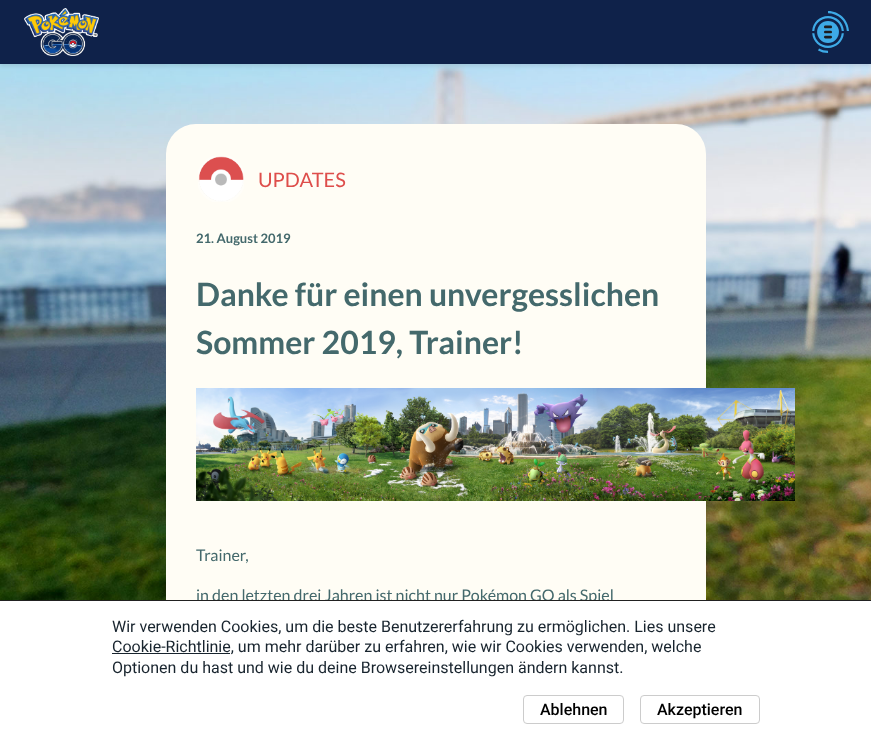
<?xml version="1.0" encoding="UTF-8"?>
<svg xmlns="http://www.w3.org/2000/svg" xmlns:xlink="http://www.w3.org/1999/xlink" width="871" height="740">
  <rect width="100%" height="100%" fill="#ffffff" />
  <image x="0" y="64" width="871" height="536" xlink:href="image3.png" />
  <rect y="2" width="871" height="64" fill="#000000" fill-opacity="0.1" filter="blur(2px)" />
  <rect width="871" height="64" fill="#0f224a" />
  <image x="24" y="8" width="75" height="48" xlink:href="image1.png" />
  <image x="812" y="11" width="37" height="42" xlink:href="image2.png" />
  <rect x="166" y="124" width="540" height="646" rx="30" fill="#fffdf5" />
  <image x="198" y="156" width="46" height="46" xlink:href="image4.png" />
  <image x="196" y="388" width="599" height="113" xlink:href="image5.png" />
  <text x="258" y="187" style="font-family: Lato; font-size: 20px; fill: #de4e4b">UPDATES</text>
  <text x="196" y="243" style="font-family: Lato; font-size: 13px; font-weight: bold; fill: #44696c">21. August 2019</text>
  <text x="196" y="306" style="font-family: Lato; font-size: 32px; font-weight: bold; fill: #44696c">Danke für einen unvergesslichen</text>
  <text x="196" y="354" style="font-family: Lato; font-size: 32px; font-weight: bold; fill: #44696c">Sommer 2019, Trainer!</text>
  <text x="196" y="561" style="font-family: Lato; font-size: 16px; fill: #44696c">Trainer,</text>
  <text x="196" y="601" style="font-family: Lato; font-size: 16px; fill: #44696c">in den letzten drei Jahren ist nicht nur Pokémon GO als Spiel</text>
  <rect x="166" y="601" width="540" height="139" fill="#ffffff" />
  <rect y="600" width="871" height="1" fill="#212121" />
  <text x="112" y="632" style="font-family: Roboto; font-size: 16px; fill: #18242e">Wir verwenden Cookies, um die beste Benutzererfahrung zu ermöglichen. Lies unsere</text>
  <rect x="112" y="653" width="118" height="1" fill="#18242e" />
  <text x="112" y="652" style="font-family: Roboto; font-size: 16px; fill: #18242e">Cookie-Richtlinie, um mehr darüber zu erfahren, wie wir Cookies verwenden, welche</text>
  <text x="112" y="673" style="font-family: Roboto; font-size: 16px; fill: #18242e">Optionen du hast und wie du deine Browsereinstellungen ändern kannst.</text>
  <rect x="523.5" y="695.5" width="100" height="28" rx="3.5" fill="none" stroke="#cccccc" />
  <text x="540" y="715" style="font-family: Roboto; font-size: 16px; font-weight: 500; fill: #000000">Ablehnen</text>
  <rect x="640.5" y="695.5" width="119" height="28" rx="3.5" fill="none" stroke="#cccccc" />
  <text x="657" y="715" style="font-family: Roboto; font-size: 16px; font-weight: 500; fill: #000000">Akzeptieren</text>
</svg>
